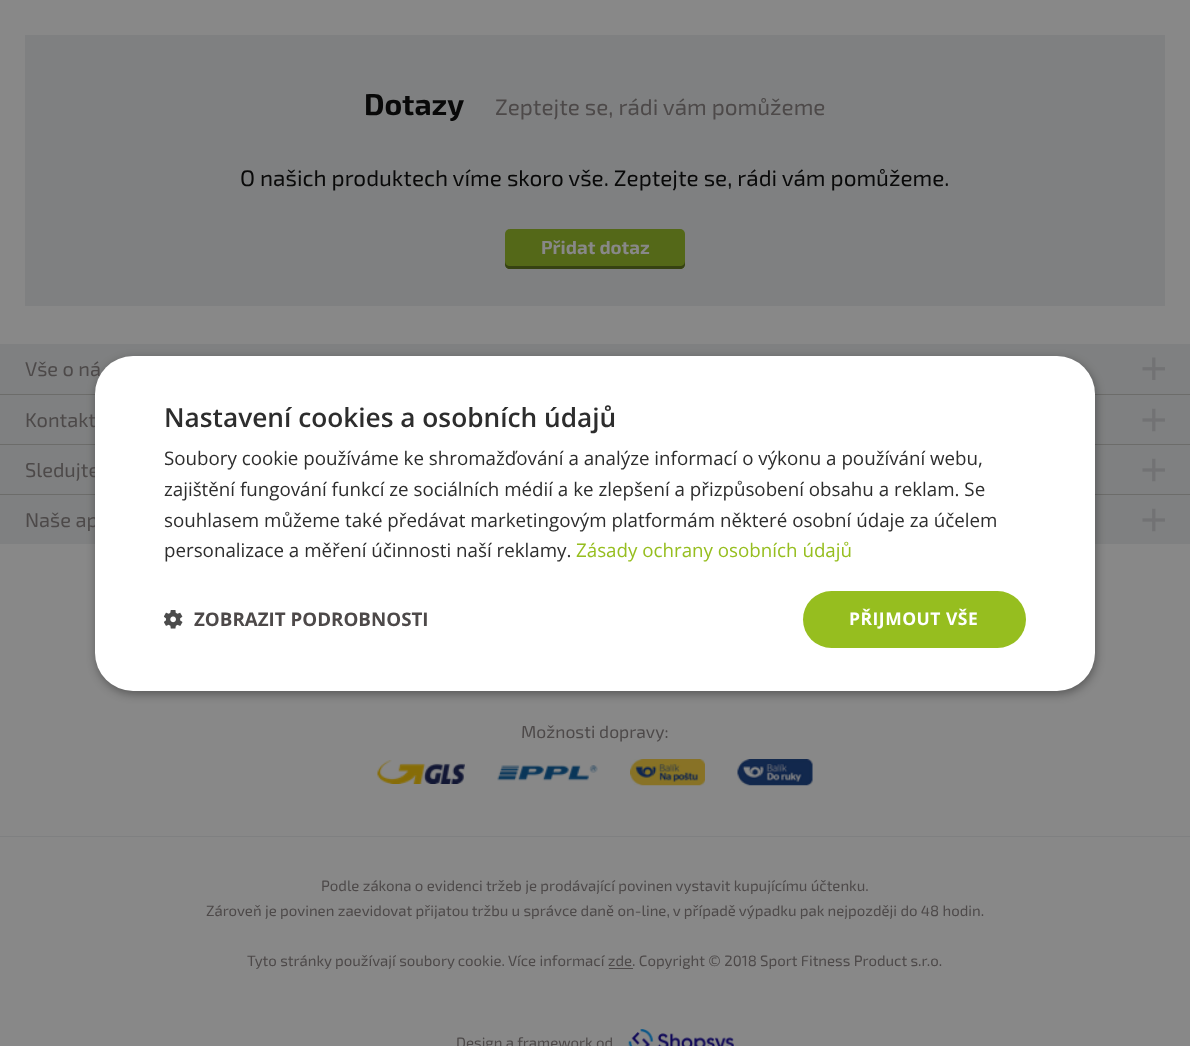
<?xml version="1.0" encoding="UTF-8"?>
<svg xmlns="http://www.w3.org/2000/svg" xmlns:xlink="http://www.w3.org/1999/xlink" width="1190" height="1046">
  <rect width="100%" height="100%" fill="#888888" />
  <rect x="25" y="35" width="1140" height="271" fill="#7f8081" />
  <rect x="505" y="229" width="180" height="40" rx="5" fill="#546818" />
  <path d="M 505 261 v 3 c 0 3 2 5 5 5 h 170 c 3 0 5 -2 5 -5 v -3 c 0 3 -2 5 -5 5 h -170 c -3 0 -5 -2 -5 -5 z" fill="#364212" />
  <rect y="344" width="1190" height="200" fill="#7f8081" />
  <image x="1142" y="357" width="23" height="23" xlink:href="image1.png" />
  <rect y="394" width="1190" height="1" fill="#6c6c6a" />
  <image x="1142" y="408" width="23" height="24" xlink:href="image2.png" />
  <rect y="444" width="1190" height="1" fill="#6c6c6a" />
  <image x="1142" y="458" width="23" height="24" xlink:href="image2.png" />
  <rect y="494" width="1190" height="1" fill="#6c6c6a" />
  <image x="1142" y="508" width="23" height="24" xlink:href="image2.png" />
  <rect y="836" width="1190" height="1" fill="#7f8081" />
  <image x="377" y="760" width="88" height="24" xlink:href="image3.png" />
  <image x="497" y="765" width="101" height="16" xlink:href="image4.png" />
  <image x="630" y="759" width="75" height="27" xlink:href="image5.png" />
  <image x="737" y="759" width="76" height="27" xlink:href="image6.png" />
  <rect x="609" y="968" width="24" height="1" fill="#4d4949" />
  <image x="628" y="1029" width="106" height="17" xlink:href="image7.png" />
  <rect x="96" y="359" width="1000" height="335" rx="38" fill="#000000" fill-opacity="0.35" filter="blur(5px)" />
  <text x="364" y="115" style="font-family: 'Exo 2'; font-size: 30px; font-weight: bold; fill: #090909">Dotazy</text>
  <text x="495" y="115" style="font-family: 'Exo 2'; font-size: 22.5px; fill: #4d4949">Zeptejte se, rádi vám pomůžeme</text>
  <text x="240" y="186" style="font-family: 'Exo 2'; font-size: 22.5px; fill: #090909">O našich produktech víme skoro vše. Zeptejte se, rádi vám pomůžeme.</text>
  <text x="541" y="254" style="font-family: 'Exo 2'; font-size: 18.75px; font-weight: bold; fill: #888888">Přidat dotaz</text>
  <text x="25" y="376" style="font-family: 'Exo 2'; font-size: 20px; fill: #4d4949">Vše o ná</text>
  <text x="25" y="427" style="font-family: 'Exo 2'; font-size: 20px; fill: #4d4949">Kontakt</text>
  <text x="25" y="477" style="font-family: 'Exo 2'; font-size: 20px; fill: #4d4949">Sledujte</text>
  <text x="25" y="527" style="font-family: 'Exo 2'; font-size: 20px; fill: #4d4949">Naše ap</text>
  <text x="521" y="738" style="font-family: 'Exo 2'; font-size: 17.5px; fill: #4d4949">Možnosti dopravy:</text>
  <text x="321" y="891" style="font-family: 'Exo 2'; font-size: 15px; fill: #4d4949">Podle zákona o evidenci tržeb je prodávající povinen vystavit kupujícímu účtenku.</text>
  <text x="206" y="916" style="font-family: 'Exo 2'; font-size: 15px; fill: #4d4949">Zároveň je povinen zaevidovat přijatou tržbu u správce daně on-line, v případě výpadku pak nejpozději do 48 hodin.</text>
  <text x="247" y="966" style="font-family: 'Exo 2'; font-size: 15px; fill: #4d4949">Tyto stránky používají soubory cookie. Více informací zde. Copyright © 2018 Sport Fitness Product s.r.o.</text>
  <text x="456" y="1048" style="font-family: 'Exo 2'; font-size: 15px; fill: #4d4949">Design a framework od</text>
  <rect x="95" y="356" width="1000" height="335" rx="38" fill="#ffffff" />
  <text x="164" y="427" style="font-family: Open Sans; font-size: 26.25px; font-weight: 600; fill: #2d2d2d">Nastavení cookies a osobních údajů</text>
  <text x="164" y="465" style="font-family: Open Sans; font-size: 18.75px; fill: #2d2d2d">Soubory cookie používáme ke shromažďování a analýze informací o výkonu a používání webu,</text>
  <text x="164" y="496" style="font-family: Open Sans; font-size: 18.75px; fill: #2d2d2d">zajištění fungování funkcí ze sociálních médií a ke zlepšení a přizpůsobení obsahu a reklam. Se</text>
  <text x="164" y="527" style="font-family: Open Sans; font-size: 18.75px; fill: #2d2d2d">souhlasem můžeme také předávat marketingovým platformám některé osobní údaje za účelem</text>
  <text x="164" y="557" style="font-family: Open Sans; font-size: 18.75px; fill: #2d2d2d">personalizace a měření účinnosti naší reklamy.</text>
  <text x="576" y="557" style="font-family: Open Sans; font-size: 18.75px; fill: #96be1f">Zásady ochrany osobních údajů</text>
  <image x="164" y="610" width="19" height="19" xlink:href="image8.png" />
  <text x="194" y="626" style="font-family: Open Sans; font-size: 18.75px; font-weight: bold; fill: #4d4949">ZOBRAZIT PODROBNOSTI</text>
  <rect x="803" y="591" width="223" height="57" rx="28.5" fill="#96be1f" />
  <text x="849" y="625" style="font-family: Open Sans; font-size: 17.5px; font-weight: bold; letter-spacing: 0.5px; fill: #ffffff">PŘIJMOUT VŠE</text>
</svg>
